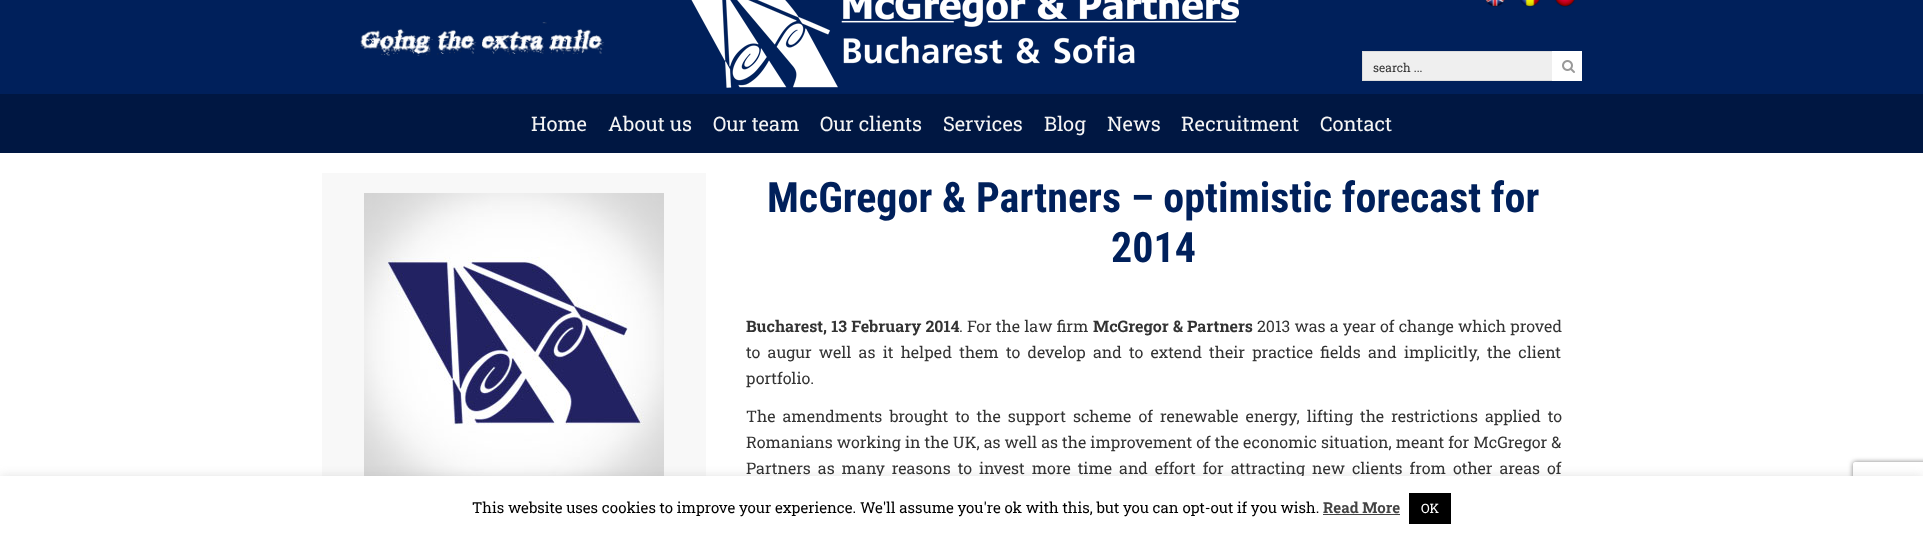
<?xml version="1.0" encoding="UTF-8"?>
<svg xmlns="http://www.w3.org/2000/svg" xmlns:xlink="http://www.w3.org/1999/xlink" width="1923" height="536">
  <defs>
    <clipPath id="clip1"><path d="M 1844 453 h 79 v 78 h -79 z m 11 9 h 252 c 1 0 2 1 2 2 v 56 c 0 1 -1 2 -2 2 h -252 c -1 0 -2 -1 -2 -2 v -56 c 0 -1 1 -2 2 -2 z" clip-rule="evenodd" /></clipPath>
  </defs>
  <rect width="100%" height="100%" fill="#ffffff" />
  <rect width="1923" height="94" fill="#00205b" />
  <image x="360" y="22" width="244" height="34" xlink:href="image1.png" />
  <image x="691" y="0" width="548" height="88" xlink:href="image2.png" />
  <image x="1485" y="0" width="20" height="7" xlink:href="image3.png" />
  <image x="1520" y="0" width="20" height="7" xlink:href="image4.png" />
  <image x="1555" y="0" width="20" height="7" xlink:href="image5.png" />
  <rect x="1363" y="52" width="189" height="28" fill="#efefef" />
  <rect x="1362.5" y="51.5" width="219" height="29" fill="none" stroke="#dddddd" />
  <rect x="1552" y="51" width="30" height="30" fill="#ffffff" />
  <image x="1562" y="60" width="13" height="13" xlink:href="image6.png" />
  <rect y="94" width="1923" height="59" fill="#001742" />
  <rect x="322" y="173" width="384" height="303" fill="#f8f8f8" />
  <image x="364" y="193" width="300" height="283" xlink:href="image7.png" />
  <rect y="475" width="1923" height="60" fill="#acabab" fill-opacity="0.3" filter="blur(5px)" />
  <g clip-path="url(#clip1)">
    <rect x="1853" y="462" width="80" height="60" rx="2" fill="#808080" filter="blur(2.5px)" />
  </g>
  <text x="1373" y="72" style="font-family: Roboto Slab; font-size: 12px; fill: #333333">search ...</text>
  <text x="531" y="131" style="font-family: Roboto Slab; font-size: 20px; fill: #f5f5f5">Home</text>
  <text x="608" y="131" style="font-family: Roboto Slab; font-size: 20px; fill: #f5f5f5">About us</text>
  <text x="713" y="131" style="font-family: Roboto Slab; font-size: 20px; fill: #f5f5f5">Our team</text>
  <text x="820" y="131" style="font-family: Roboto Slab; font-size: 20px; fill: #f5f5f5">Our clients</text>
  <text x="943" y="131" style="font-family: Roboto Slab; font-size: 20px; fill: #f5f5f5">Services</text>
  <text x="1044" y="131" style="font-family: Roboto Slab; font-size: 20px; fill: #f5f5f5">Blog</text>
  <text x="1107" y="131" style="font-family: Roboto Slab; font-size: 20px; fill: #f5f5f5">News</text>
  <text x="1181" y="131" style="font-family: Roboto Slab; font-size: 20px; fill: #f5f5f5">Recruitment</text>
  <text x="1320" y="131" style="font-family: Roboto Slab; font-size: 20px; fill: #f5f5f5">Contact</text>
  <text x="767" y="212" style="font-family: Roboto Condensed; font-size: 42px; font-weight: bold; fill: #00205b">McGregor &amp; Partners – optimistic forecast for</text>
  <text x="1111" y="262" style="font-family: Roboto Condensed; font-size: 42px; font-weight: bold; fill: #00205b">2014</text>
  <text x="746" y="332" word-spacing="0.25" style="font-family: Roboto Slab; font-size: 16px; font-weight: bold; fill: #333333">Bucharest, 13 February 2014</text>
  <text x="959" y="332" word-spacing="0.25" style="font-family: Roboto Slab; font-size: 16px; fill: #333333">. For the law firm</text>
  <text x="1093" y="332" word-spacing="0.25" style="font-family: Roboto Slab; font-size: 16px; font-weight: bold; fill: #333333">McGregor &amp; Partners</text>
  <text x="1257" y="332" word-spacing="0.25" style="font-family: Roboto Slab; font-size: 16px; fill: #333333">2013 was a year of change which proved</text>
  <text x="746" y="358" word-spacing="3.25" style="font-family: Roboto Slab; font-size: 16px; fill: #333333">to augur well as it helped them to develop and to extend their practice fields and implicitly, the client</text>
  <text x="746" y="384" style="font-family: Roboto Slab; font-size: 16px; fill: #333333">portfolio.</text>
  <text x="746" y="422" word-spacing="3.1" style="font-family: Roboto Slab; font-size: 16px; fill: #333333">The amendments brought to the support scheme of renewable energy, lifting the restrictions applied to</text>
  <text x="746" y="448" word-spacing="0.1" style="font-family: Roboto Slab; font-size: 16px; fill: #333333">Romanians working in the UK, as well as the improvement of the economic situation, meant for McGregor &amp;</text>
  <text x="746" y="474" word-spacing="3" style="font-family: Roboto Slab; font-size: 16px; fill: #333333">Partners as many reasons to invest more time and effort for attracting new clients from other areas of</text>
  <rect y="476" width="1923" height="60" fill="#ffffff" />
  <text x="472" y="513" style="font-family: Roboto Slab; font-size: 15px; fill: #000000">This website uses cookies to improve your experience. We'll assume you're ok with this, but you can opt-out if you wish.</text>
  <text x="1323" y="513" style="font-family: Roboto Slab; font-size: 15px; font-weight: bold; fill: #444444">Read More</text>
  <rect x="1323" y="514" width="77" height="1" fill="#444444" />
  <rect x="1409" y="493" width="42" height="31" fill="#000000" />
  <text x="1421" y="513" style="font-family: Roboto Slab; font-size: 13px; fill: #ffffff">OK</text>
</svg>
